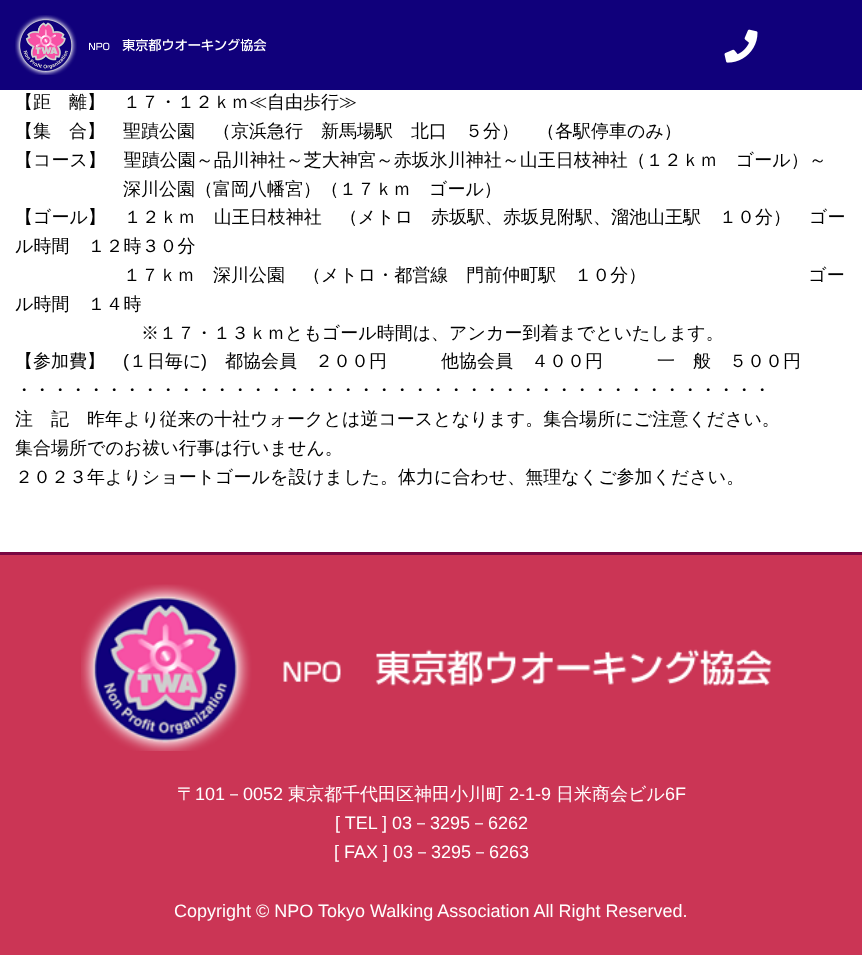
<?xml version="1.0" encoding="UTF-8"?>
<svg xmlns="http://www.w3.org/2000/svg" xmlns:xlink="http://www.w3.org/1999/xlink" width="862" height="955">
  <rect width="100%" height="100%" fill="#ffffff" />
  <rect width="862" height="90" fill="#10007b" />
  <image x="15" y="15" width="252" height="60" xlink:href="image1.png" />
  <image x="724" y="29" width="34" height="34" xlink:href="image2.png" />
  <rect y="555" width="862" height="400" fill="#cb3555" />
  <rect y="552" width="862" height="3" fill="#790741" />
  <image x="81" y="584" width="691" height="167" xlink:href="image3.png" />
  <text x="15" y="108" style="font-family: WenQuanYi Zen Hei; font-size: 18px; font-weight: 500; fill: #000000">【距　離】　１７・１２ｋｍ≪自由歩行≫</text>
  <text x="15" y="137" style="font-family: WenQuanYi Zen Hei; font-size: 18px; font-weight: 500; fill: #000000">【集　合】　聖蹟公園　（京浜急行　新馬場駅　北口　５分）　（各駅停車のみ）</text>
  <text x="15" y="166" style="font-family: WenQuanYi Zen Hei; font-size: 18px; font-weight: 500; fill: #000000">【コース】　聖蹟公園～品川神社～芝大神宮～赤坂氷川神社～山王日枝神社（１２ｋｍ　ゴール）～</text>
  <text x="123" y="195" style="font-family: WenQuanYi Zen Hei; font-size: 18px; font-weight: 500; fill: #000000">深川公園（富岡八幡宮）（１７ｋｍ　ゴール）</text>
  <text x="15" y="223" style="font-family: WenQuanYi Zen Hei; font-size: 18px; font-weight: 500; fill: #000000">【ゴール】　１２ｋｍ　山王日枝神社　（メトロ　赤坂駅、赤坂見附駅、溜池山王駅　１０分）　ゴー</text>
  <text x="15" y="252" style="font-family: WenQuanYi Zen Hei; font-size: 18px; font-weight: 500; fill: #000000">ル時間　１２時３０分</text>
  <text x="123" y="281" style="font-family: WenQuanYi Zen Hei; font-size: 18px; font-weight: 500; fill: #000000">１７ｋｍ　深川公園　（メトロ・都営線　門前仲町駅　１０分）　　　　　　　　　ゴー</text>
  <text x="15" y="310" style="font-family: WenQuanYi Zen Hei; font-size: 18px; font-weight: 500; fill: #000000">ル時間　１４時</text>
  <text x="141" y="339" style="font-family: WenQuanYi Zen Hei; font-size: 18px; font-weight: 500; fill: #000000">※１７・１３ｋｍともゴール時間は、アンカー到着までといたします。</text>
  <text x="15" y="367" style="font-family: WenQuanYi Zen Hei; font-size: 18px; font-weight: 500; fill: #000000">【参加費】</text>
  <text x="123" y="367" style="font-family: Liberation Sans; font-size: 18px; fill: #000000">(</text>
  <text x="129" y="367" style="font-family: WenQuanYi Zen Hei; font-size: 18px; font-weight: 500; fill: #000000">１日毎に</text>
  <text x="201" y="367" style="font-family: Liberation Sans; font-size: 18px; fill: #000000">)</text>
  <text x="225" y="367" style="font-family: WenQuanYi Zen Hei; font-size: 18px; font-weight: 500; fill: #000000">都協会員　２００円　　　他協会員　４００円　　　一　般　５００円</text>
  <text x="15" y="396" style="font-family: WenQuanYi Zen Hei; font-size: 18px; font-weight: 500; fill: #000000">・・・・・・・・・・・・・・・・・・・・・・・・・・・・・・・・・・・・・・・・・・</text>
  <text x="15" y="425" style="font-family: WenQuanYi Zen Hei; font-size: 18px; font-weight: 500; fill: #000000">注　記　昨年より従来の十社ウォークとは逆コースとなります。集合場所にご注意ください。</text>
  <text x="15" y="454" style="font-family: WenQuanYi Zen Hei; font-size: 18px; font-weight: 500; fill: #000000">集合場所でのお祓い行事は行いません。</text>
  <text x="15" y="483" style="font-family: WenQuanYi Zen Hei; font-size: 18px; font-weight: 500; fill: #000000">２０２３年よりショートゴールを設けました。体力に合わせ、無理なくご参加ください。</text>
  <text x="177" y="800" style="font-family: WenQuanYi Zen Hei; font-size: 18px; font-weight: 500; fill: #ffffff">〒</text>
  <text x="195" y="800" style="font-family: Liberation Sans; font-size: 18px; fill: #ffffff">101</text>
  <text x="225" y="800" style="font-family: WenQuanYi Zen Hei; font-size: 18px; font-weight: 500; fill: #ffffff">－</text>
  <text x="243" y="800" style="font-family: Liberation Sans; font-size: 18px; fill: #ffffff">0052</text>
  <text x="288" y="800" style="font-family: WenQuanYi Zen Hei; font-size: 18px; font-weight: 500; fill: #ffffff">東京都千代田区神田小川町</text>
  <text x="509" y="800" style="font-family: Liberation Sans; font-size: 18px; fill: #ffffff">2-1-9</text>
  <text x="556" y="800" style="font-family: WenQuanYi Zen Hei; font-size: 18px; font-weight: 500; fill: #ffffff">日米商会ビル</text>
  <text x="665" y="800" style="font-family: Liberation Sans; font-size: 18px; fill: #ffffff">6F</text>
  <text x="335" y="829" style="font-family: Liberation Sans; font-size: 18px; fill: #ffffff">[ TEL ] 03</text>
  <text x="412" y="829" style="font-family: WenQuanYi Zen Hei; font-size: 18px; font-weight: 500; fill: #ffffff">－</text>
  <text x="430" y="829" style="font-family: Liberation Sans; font-size: 18px; fill: #ffffff">3295</text>
  <text x="470" y="829" style="font-family: WenQuanYi Zen Hei; font-size: 18px; font-weight: 500; fill: #ffffff">－</text>
  <text x="488" y="829" style="font-family: Liberation Sans; font-size: 18px; fill: #ffffff">6262</text>
  <text x="334" y="858" style="font-family: Liberation Sans; font-size: 18px; fill: #ffffff">[ FAX ] 03</text>
  <text x="413" y="858" style="font-family: WenQuanYi Zen Hei; font-size: 18px; font-weight: 500; fill: #ffffff">－</text>
  <text x="431" y="858" style="font-family: Liberation Sans; font-size: 18px; fill: #ffffff">3295</text>
  <text x="471" y="858" style="font-family: WenQuanYi Zen Hei; font-size: 18px; font-weight: 500; fill: #ffffff">－</text>
  <text x="489" y="858" style="font-family: Liberation Sans; font-size: 18px; fill: #ffffff">6263</text>
  <text x="174" y="917" style="font-family: Liberation Sans; font-size: 18px; fill: #ffffff">Copyright © NPO Tokyo Walking Association All Right Reserved.</text>
</svg>
